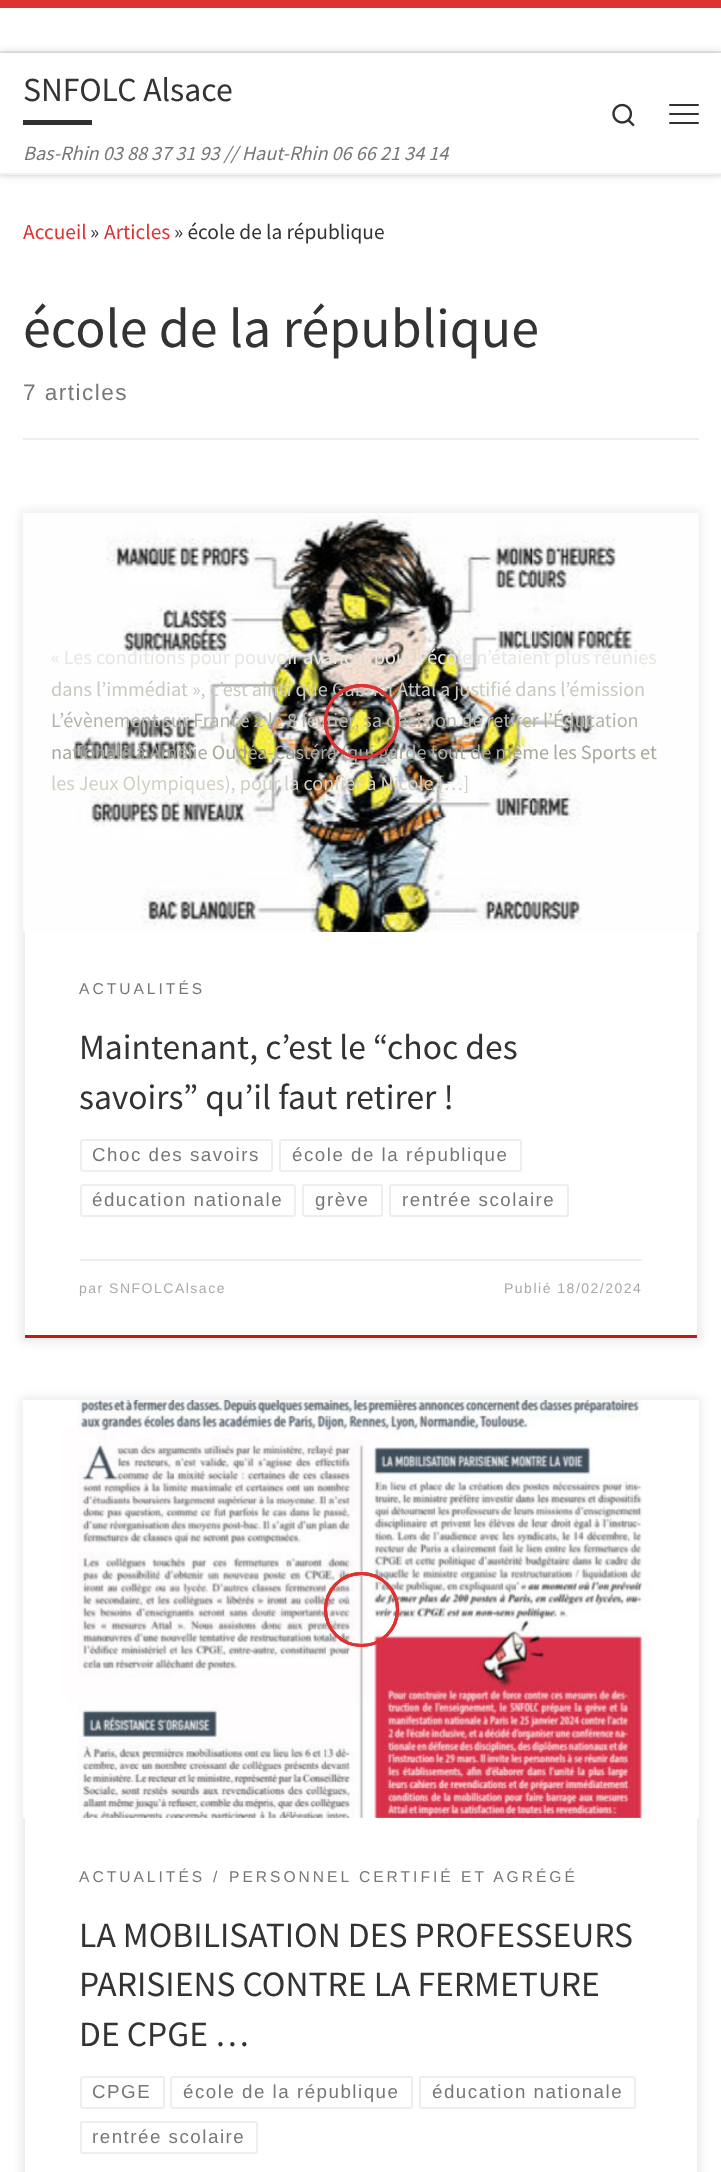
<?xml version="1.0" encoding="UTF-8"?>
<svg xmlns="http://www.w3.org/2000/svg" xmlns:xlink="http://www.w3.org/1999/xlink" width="721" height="2172">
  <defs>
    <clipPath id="clip1"><path d="M 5 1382 h 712 v 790 h -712 z m 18 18 h 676 v 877 h -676 z" clip-rule="evenodd" /></clipPath>
  </defs>
  <rect width="100%" height="100%" fill="#ffffff" />
  <rect y="3" width="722" height="173" fill="#666666" fill-opacity="0.08" filter="blur(1.5px)" />
  <rect y="8" width="721" height="43" fill="#ffffff" />
  <rect width="721" height="8" fill="#dd3333" />
  <rect y="51" width="721" height="2" fill="#ececec" />
  <rect y="53" width="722" height="121" fill="#000000" fill-opacity="0.2" filter="blur(4px)" />
  <rect y="53" width="721" height="120" fill="#ffffff" />
  <rect x="23" y="120" width="69" height="5" fill="#313131" />
  <image x="612" y="103" width="23" height="24" xlink:href="image1.png" />
  <rect x="669" y="104" width="30" height="2" rx="1" fill="#313131" />
  <rect x="669" y="113" width="30" height="2" rx="1" fill="#313131" />
  <rect x="669" y="122" width="30" height="2" rx="1" fill="#313131" />
  <rect y="173" width="721" height="2" fill="#f0f0f0" />
  <rect x="23" y="438" width="676" height="2" fill="#eceeef" />
  <rect x="20" y="510" width="682" height="833" fill="#000000" fill-opacity="0.07" filter="blur(4.5px)" />
  <rect x="25" y="932" width="672" height="403" fill="#ffffff" />
  <rect x="23" y="1335" width="676" height="3" fill="#b51e1e" />
  <rect x="81" y="1140" width="191" height="31" rx="2" fill="none" stroke="#eceeef" stroke-width="2" />
  <rect x="280" y="1140" width="241" height="31" rx="2" fill="none" stroke="#eceeef" stroke-width="2" />
  <rect x="81" y="1185" width="214" height="31" rx="2" fill="none" stroke="#eceeef" stroke-width="2" />
  <rect x="303" y="1185" width="79" height="31" rx="2" fill="none" stroke="#eceeef" stroke-width="2" />
  <rect x="390" y="1185" width="178" height="31" rx="2" fill="none" stroke="#eceeef" stroke-width="2" />
  <rect x="24" y="514" width="674" height="825" fill="none" stroke="#efefef" stroke-width="2" />
  <image x="23" y="513" width="676" height="419" xlink:href="image2.png" />
  <rect x="80" y="1259" width="562" height="2" fill="#eceeef" />
  <g clip-path="url(#clip1)">
    <rect x="20" y="1397" width="682" height="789" fill="#000000" fill-opacity="0.07" filter="blur(4.5px)" />
  </g>
  <rect x="81" y="2077" width="83" height="31" rx="2" fill="none" stroke="#eceeef" stroke-width="2" />
  <rect x="171" y="2077" width="241" height="31" rx="2" fill="none" stroke="#eceeef" stroke-width="2" />
  <rect x="420" y="2077" width="215" height="31" rx="2" fill="none" stroke="#eceeef" stroke-width="2" />
  <rect x="81" y="2122" width="176" height="31" rx="2" fill="none" stroke="#eceeef" stroke-width="2" />
  <rect x="24" y="1401" width="674" height="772" fill="none" stroke="#efefef" stroke-width="2" />
  <image x="23" y="1400" width="676" height="418" xlink:href="image3.png" />
  <circle cx="361.5" cy="1609.5" r="36" fill="none" stroke="#dd3333" stroke-width="3" />
  <circle cx="361.5" cy="1609.5" r="36" fill="none" stroke="#dd3333" stroke-width="3" />
  <circle cx="361.5" cy="1609.5" r="36" fill="none" stroke="#dd3333" stroke-width="3" />
  <text x="23" y="101" style="font-family: Source Sans Pro; font-size: 33.75px; fill: #333333">SNFOLC Alsace</text>
  <text x="23" y="160" style="font-family: Source Sans Pro; font-size: 20.25px; font-style: italic; fill: #777777">Bas-Rhin 03 88 37 31 93 // Haut-Rhin 06 66 21 34 14</text>
  <text x="23" y="239" style="font-family: Source Sans Pro; font-size: 21.4px; fill: #dd3333">Accueil</text>
  <text x="90" y="239" style="font-family: Source Sans Pro; font-size: 21.4px; fill: #333333">»</text>
  <text x="104" y="239" style="font-family: Source Sans Pro; font-size: 21.4px; fill: #dd3333">Articles</text>
  <text x="174" y="239" style="font-family: Source Sans Pro; font-size: 21.4px; fill: #333333">» école de la république</text>
  <text x="23" y="347" style="font-family: Source Sans Pro; font-size: 56px; fill: #333333">école de la république</text>
  <text x="23" y="400" style="font-family: Liberation Sans; font-size: 22.5px; letter-spacing: 1.5px; fill: #777777">7 articles</text>
  <text x="51" y="664" style="font-family: Source Sans Pro; font-size: 20.25px; fill: #e8e6e1">« Les conditions pour pouvoir avancer pour l’école n’étaient plus réunies</text>
  <text x="51" y="696" style="font-family: Source Sans Pro; font-size: 20.25px; fill: #cac9c1">dans l’immédiat », c’est ainsi que Gabriel Attal a justifié dans l’émission</text>
  <text x="51" y="727" style="font-family: Source Sans Pro; font-size: 20.25px; fill: #b5b4aa">L’évènement sur France 2 le 8 février, sa décision de retirer l’Éducation</text>
  <text x="51" y="759" style="font-family: Source Sans Pro; font-size: 20.25px; fill: #a8a89d">nationale à Amélie Oudéa-Castéra (qui garde tout de même les Sports et</text>
  <text x="51" y="790" style="font-family: Source Sans Pro; font-size: 20.25px; fill: #d4cfc4">les Jeux Olympiques), pour la confier à Nicole […]</text>
  <circle cx="361.5" cy="721.5" r="36" fill="none" stroke="#dd3333" stroke-width="3" />
  <circle cx="361.5" cy="721.5" r="36" fill="none" stroke="#dd3333" stroke-width="3" />
  <circle cx="361.5" cy="721.5" r="36" fill="none" stroke="#dd3333" stroke-width="3" />
  <text x="79" y="994" style="font-family: Liberation Sans; font-size: 15.6px; letter-spacing: 3px; fill: #777777">ACTUALITÉS</text>
  <text x="79" y="1059" style="font-family: Source Sans Pro; font-size: 35.6px; fill: #333333">Maintenant, c’est le “choc des</text>
  <text x="79" y="1109" style="font-family: Source Sans Pro; font-size: 35.6px; fill: #333333">savoirs” qu’il faut retirer !</text>
  <text x="92" y="1161" style="font-family: Liberation Sans; font-size: 18.75px; letter-spacing: 1.5px; fill: #777777">Choc des savoirs</text>
  <text x="292" y="1161" style="font-family: Liberation Sans; font-size: 18.75px; letter-spacing: 1.5px; fill: #777777">école de la république</text>
  <text x="92" y="1206" style="font-family: Liberation Sans; font-size: 18.75px; letter-spacing: 1.5px; fill: #777777">éducation nationale</text>
  <text x="315" y="1206" style="font-family: Liberation Sans; font-size: 18.75px; letter-spacing: 1.5px; fill: #777777">grève</text>
  <text x="402" y="1206" style="font-family: Liberation Sans; font-size: 18.75px; letter-spacing: 1.5px; fill: #777777">rentrée scolaire</text>
  <text x="79" y="1293" style="font-family: Liberation Sans; font-size: 14px; letter-spacing: 1.5px; fill: #aaaaaa">par SNFOLCAlsace</text>
  <text x="504" y="1293" style="font-family: Liberation Sans; font-size: 14px; letter-spacing: 1.5px; fill: #aaaaaa">Publié 18/02/2024</text>
  <text x="79" y="1882" style="font-family: Liberation Sans; font-size: 15.6px; letter-spacing: 3px; fill: #777777">ACTUALITÉS</text>
  <text x="213" y="1882" style="font-family: Liberation Sans; font-size: 15.6px; letter-spacing: 3px; fill: #777777">/</text>
  <text x="229" y="1882" style="font-family: Liberation Sans; font-size: 15.6px; letter-spacing: 3px; fill: #777777">PERSONNEL CERTIFIÉ ET AGRÉGÉ</text>
  <text x="79" y="1947" style="font-family: Source Sans Pro; font-size: 35.6px; fill: #333333">LA MOBILISATION DES PROFESSEURS</text>
  <text x="79" y="1996" style="font-family: Source Sans Pro; font-size: 35.6px; fill: #333333">PARISIENS CONTRE LA FERMETURE</text>
  <text x="79" y="2046" style="font-family: Source Sans Pro; font-size: 35.6px; fill: #333333">DE CPGE …</text>
  <text x="92" y="2098" style="font-family: Liberation Sans; font-size: 18.75px; letter-spacing: 1.5px; fill: #777777">CPGE</text>
  <text x="183" y="2098" style="font-family: Liberation Sans; font-size: 18.75px; letter-spacing: 1.5px; fill: #777777">école de la république</text>
  <text x="432" y="2098" style="font-family: Liberation Sans; font-size: 18.75px; letter-spacing: 1.5px; fill: #777777">éducation nationale</text>
  <text x="92" y="2143" style="font-family: Liberation Sans; font-size: 18.75px; letter-spacing: 1.5px; fill: #777777">rentrée scolaire</text>
</svg>
